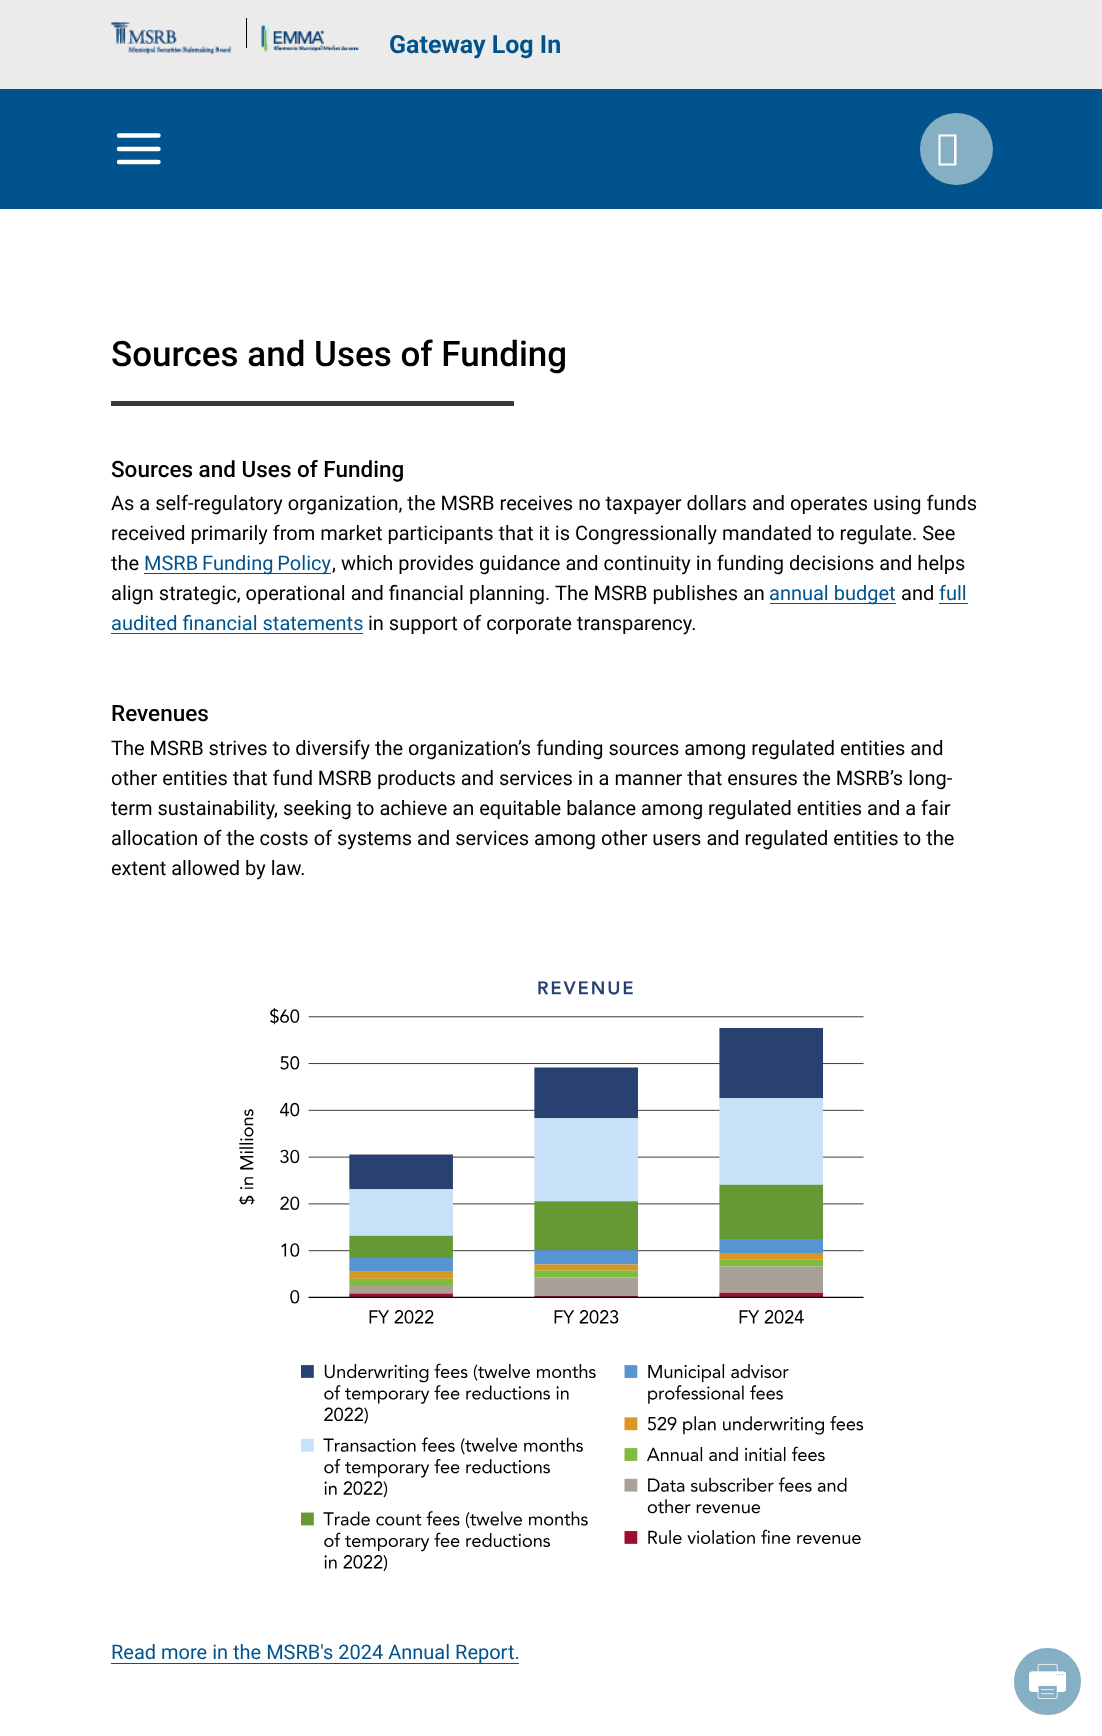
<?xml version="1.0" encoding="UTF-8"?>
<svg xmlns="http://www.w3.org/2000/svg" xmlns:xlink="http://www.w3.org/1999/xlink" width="1102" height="1736">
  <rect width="100%" height="100%" fill="#ffffff" />
  <rect width="1102" height="89" fill="#ebebeb" />
  <image x="111" y="22" width="121" height="32" xlink:href="image1.png" />
  <rect x="246" y="18" width="1" height="30" fill="#000000" />
  <image x="261" y="21" width="98" height="31" xlink:href="image2.png" />
  <rect y="89" width="1102" height="120" fill="#00538d" />
  <path d="M 119 149 h 39.5 m -39.5 -13.5 h 39.5 m -39.5 26.5 h 39.5" fill="none" stroke="#ffffff" stroke-width="4.4" stroke-linecap="round" stroke-linejoin="round" />
  <rect x="920" y="113" width="73" height="72" rx="36" fill="#85afc3" />
  <path d="M 938.5 165.5 v -31 h 18 v 31 z m 2 -2 h 13.5 v -27 h -13.5 z" fill="#ffffff" />
  <rect x="111" y="401" width="403" height="5" fill="#343a40" />
  <rect x="144" y="573" width="187" height="1" fill="#00538d" />
  <rect x="770" y="603" width="126" height="1" fill="#00538d" />
  <rect x="939" y="603" width="29" height="1" fill="#00538d" />
  <rect x="111" y="633" width="252" height="1" fill="#00538d" />
  <image x="239" y="981" width="625" height="590" xlink:href="image3.png" />
  <rect x="111" y="1663" width="408" height="1" fill="#00538d" />
  <circle cx="1047.5" cy="1681.5" r="35" fill="#85afc3" stroke="#ffffff" stroke-width="3" />
  <image x="1029" y="1663" width="37" height="36" xlink:href="image4.png" />
  <text x="389" y="53" style="font-family: Roboto; font-size: 25px; font-weight: bold; fill: #00538d">Gateway Log In</text>
  <text x="111" y="366" style="font-family: Roboto; font-size: 35px; font-weight: 500; fill: #000000">Sources and Uses of Funding</text>
  <text x="111" y="477" style="font-family: Roboto; font-size: 22.5px; font-weight: 500; fill: #000000">Sources and Uses of Funding</text>
  <text x="111" y="510" style="font-family: Roboto; font-size: 20px; fill: #000000">As a self-regulatory organization, the MSRB receives no taxpayer dollars and operates using funds</text>
  <text x="111" y="540" style="font-family: Roboto; font-size: 20px; fill: #000000">received primarily from market participants that it is Congressionally mandated to regulate. See</text>
  <text x="111" y="570" style="font-family: Roboto; font-size: 20px; fill: #000000">the</text>
  <text x="332" y="570" style="font-family: Roboto; font-size: 20px; fill: #000000">, which provides guidance and continuity in funding decisions and helps</text>
  <text x="144" y="570" word-spacing="-1" style="font-family: Roboto; font-size: 20px; fill: #00538d">MSRB Funding Policy</text>
  <text x="111" y="600" style="font-family: Roboto; font-size: 20px; fill: #000000">align strategic, operational and financial planning. The MSRB publishes an</text>
  <text x="769" y="600" style="font-family: Roboto; font-size: 20px; fill: #00538d">annual budget</text>
  <text x="901" y="600" style="font-family: Roboto; font-size: 20px; fill: #000000">and</text>
  <text x="939" y="600" style="font-family: Roboto; font-size: 20px; fill: #00538d">full</text>
  <text x="111" y="630" style="font-family: Roboto; font-size: 20px; fill: #00538d">audited financial statements</text>
  <text x="368" y="630" style="font-family: Roboto; font-size: 20px; fill: #000000">in support of corporate transparency.</text>
  <text x="111" y="721" style="font-family: Roboto; font-size: 22.5px; font-weight: 500; fill: #000000">Revenues</text>
  <text x="111" y="755" style="font-family: Roboto; font-size: 20px; fill: #000000">The MSRB strives to diversify the organization’s funding sources among regulated entities and</text>
  <text x="111" y="785" style="font-family: Roboto; font-size: 20px; fill: #000000">other entities that fund MSRB products and services in a manner that ensures the MSRB’s long-</text>
  <text x="111" y="815" style="font-family: Roboto; font-size: 20px; fill: #000000">term sustainability, seeking to achieve an equitable balance among regulated entities and a fair</text>
  <text x="111" y="845" style="font-family: Roboto; font-size: 20px; fill: #000000">allocation of the costs of systems and services among other users and regulated entities to the</text>
  <text x="111" y="875" style="font-family: Roboto; font-size: 20px; fill: #000000">extent allowed by law.</text>
  <text x="111" y="1659" style="font-family: Roboto; font-size: 20px; fill: #00538d">Read more in the MSRB's 2024 Annual Report.</text>
</svg>
